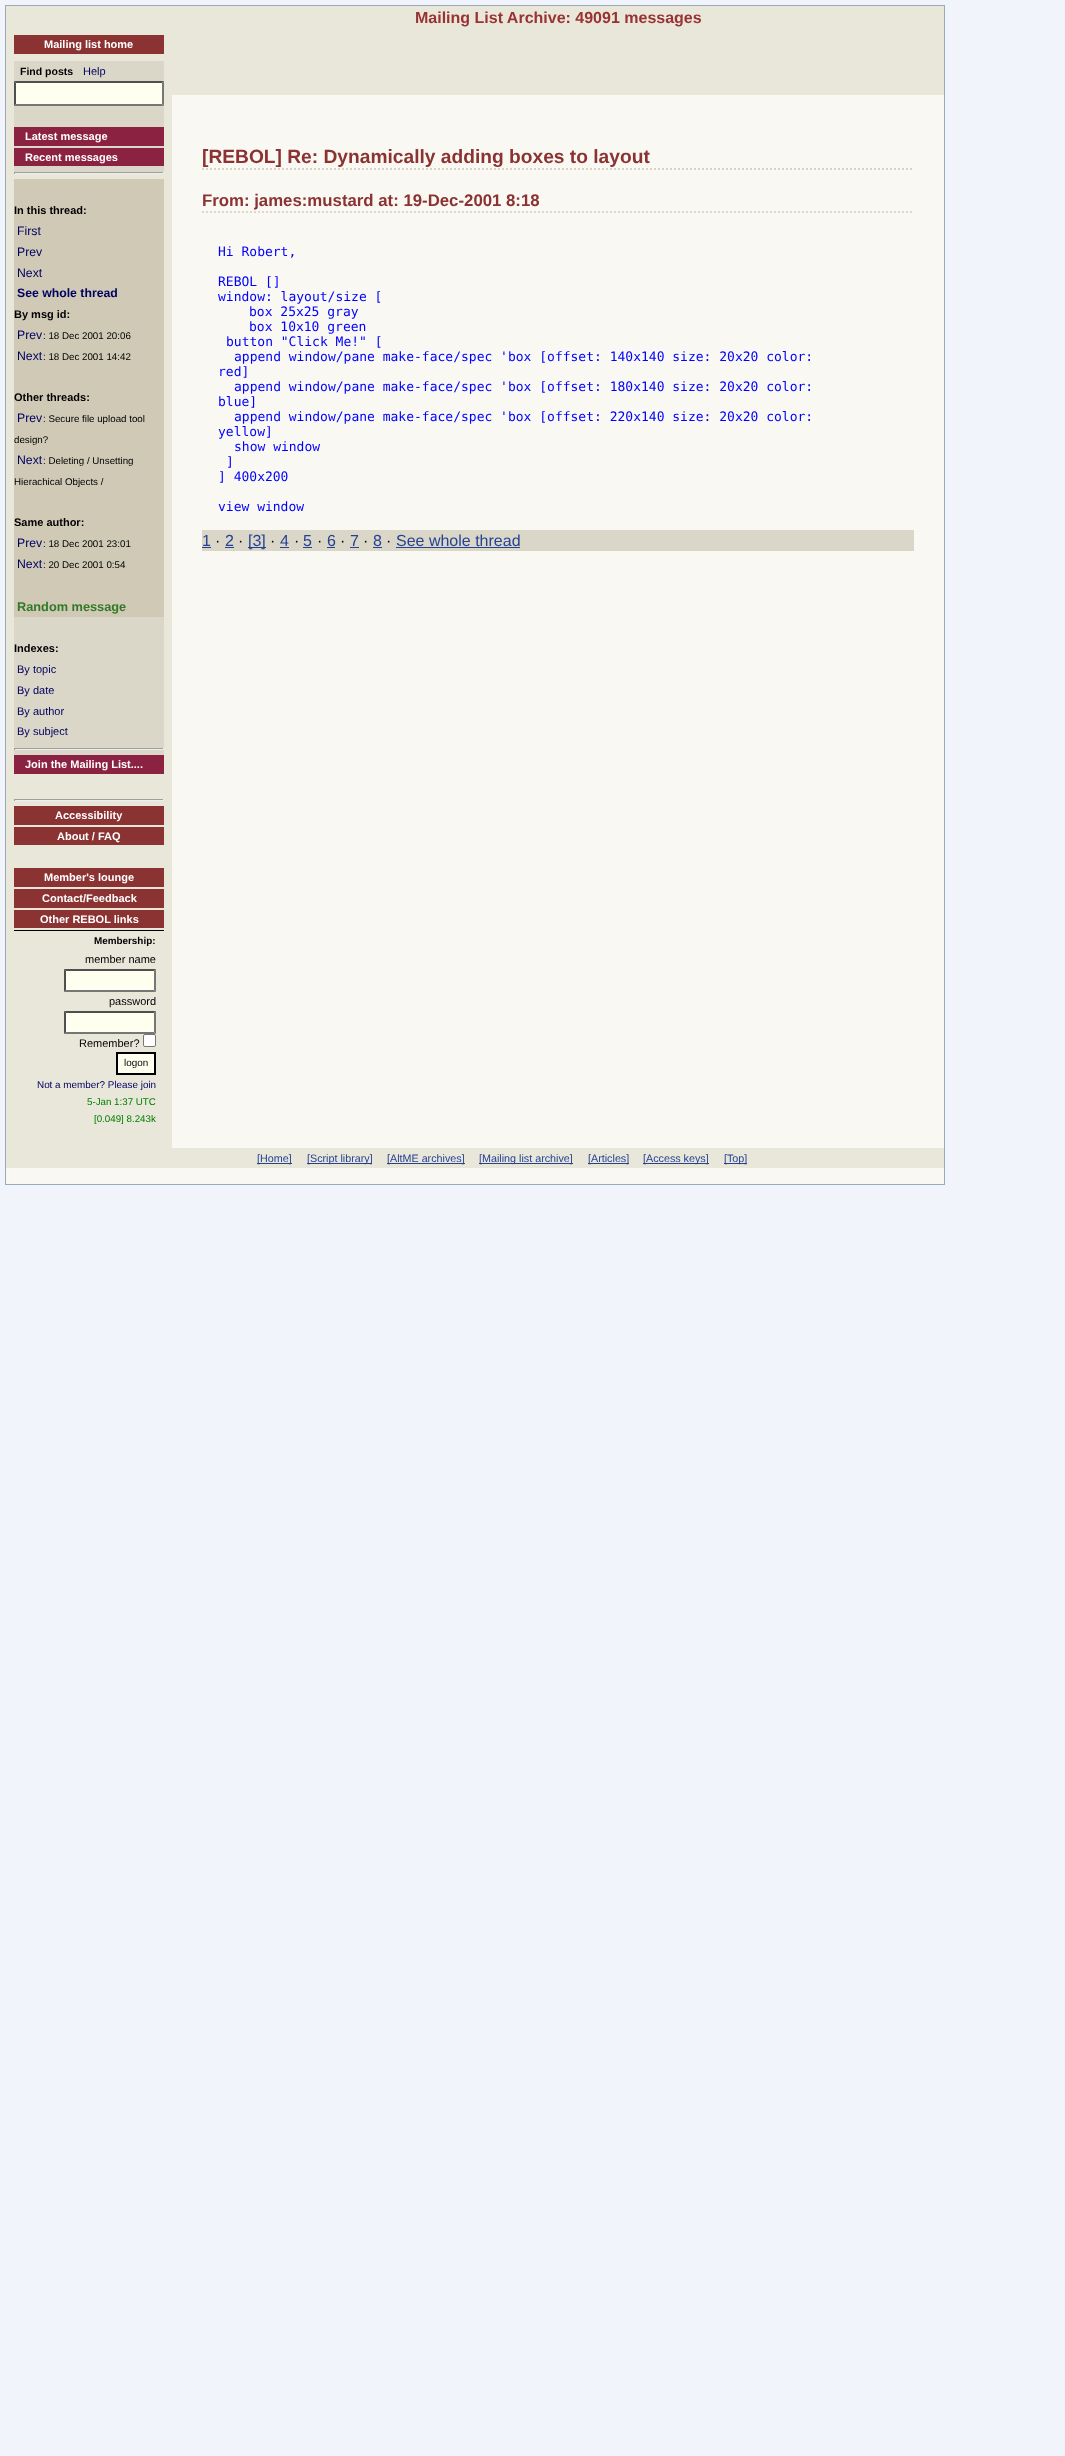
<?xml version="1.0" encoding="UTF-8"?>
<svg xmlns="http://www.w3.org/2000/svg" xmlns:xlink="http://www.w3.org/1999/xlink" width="1065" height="2456">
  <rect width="100%" height="100%" fill="#f1f4fb" />
  <rect x="6" y="95" width="938" height="1089" fill="#f9f8f2" />
  <rect x="5.5" y="5.5" width="939" height="1179" fill="none" stroke="#99abbb" />
  <rect x="6" y="6" width="166" height="1142" fill="#e9e6da" />
  <rect x="14" y="35" width="150" height="19" fill="#8b3232" />
  <rect x="14" y="61" width="150" height="111" fill="#dbd7c8" />
  <rect x="14" y="81" width="150" height="25" fill="#fffff0" />
  <path d="M 14 81 h 150 l -2 2 h -146 z" fill="#4f4f4f" />
  <path d="M 164 81 v 25 l -2 -2 v -21 z" fill="#767676" />
  <path d="M 164 106 h -150 l 2 -2 h 146 z" fill="#767676" />
  <path d="M 14 106 v -25 l 2 2 v 21 z" fill="#4f4f4f" />
  <rect x="14" y="127" width="150" height="19" fill="#8b2242" />
  <rect x="14" y="148" width="150" height="18" fill="#8b2242" />
  <rect x="14" y="172" width="150" height="1" fill="#9f9f9f" />
  <rect x="163" y="172" width="1" height="2" fill="#eeeeee" />
  <rect x="14" y="173" width="150" height="1" fill="#eeeeee" />
  <rect x="14" y="172" width="1" height="2" fill="#9f9f9f" />
  <rect x="14" y="179" width="150" height="438" fill="#cfc9b6" />
  <rect x="14" y="617" width="150" height="138" fill="#dbd7c8" />
  <rect x="14" y="748" width="150" height="1" fill="#9f9f9f" />
  <rect x="163" y="748" width="1" height="2" fill="#eeeeee" />
  <rect x="14" y="749" width="150" height="1" fill="#eeeeee" />
  <rect x="14" y="748" width="1" height="2" fill="#9f9f9f" />
  <rect x="14" y="755" width="150" height="19" fill="#8b2242" />
  <rect x="14" y="930" width="150" height="1" fill="#000000" />
  <rect x="14" y="799" width="150" height="1" fill="#9f9f9f" />
  <rect x="163" y="799" width="1" height="2" fill="#eeeeee" />
  <rect x="14" y="800" width="150" height="1" fill="#eeeeee" />
  <rect x="14" y="799" width="1" height="2" fill="#9f9f9f" />
  <rect x="14" y="806" width="150" height="19" fill="#8b3232" />
  <rect x="14" y="827" width="150" height="18" fill="#8b3232" />
  <rect x="14" y="868" width="150" height="19" fill="#8b3232" />
  <rect x="14" y="889" width="150" height="19" fill="#8b3232" />
  <rect x="14" y="910" width="150" height="18" fill="#8b3232" />
  <rect x="64" y="969" width="92" height="23" fill="#fffff0" />
  <path d="M 64 969 h 92 l -2 2 h -88 z" fill="#4f4f4f" />
  <path d="M 156 969 v 23 l -2 -2 v -19 z" fill="#767676" />
  <path d="M 156 992 h -92 l 2 -2 h 88 z" fill="#767676" />
  <path d="M 64 992 v -23 l 2 2 v 19 z" fill="#4f4f4f" />
  <rect x="64" y="1011" width="92" height="23" fill="#fffff0" />
  <path d="M 64 1011 h 92 l -2 2 h -88 z" fill="#4f4f4f" />
  <path d="M 156 1011 v 23 l -2 -2 v -19 z" fill="#767676" />
  <path d="M 156 1034 h -92 l 2 -2 h 88 z" fill="#767676" />
  <path d="M 64 1034 v -23 l 2 2 v 19 z" fill="#4f4f4f" />
  <rect x="143.5" y="1034.5" width="12" height="12" rx="1.5" fill="#ffffff" stroke="#767676" />
  <rect x="117" y="1053" width="38" height="21" fill="#fffff0" stroke="#000000" stroke-width="2" />
  <rect x="172" y="6" width="772" height="89" fill="#e9e6da" />
  <path d="M 202 169 h 712" fill="none" stroke="#d8d3c4" stroke-width="2" stroke-dasharray="2 2" />
  <path d="M 202 212 h 712" fill="none" stroke="#ddd8c9" stroke-width="2" stroke-dasharray="2 2" />
  <rect x="202" y="530" width="712" height="21" fill="#dbd7c8" />
  <rect x="202" y="547" width="9" height="1" fill="#254293" />
  <rect x="225" y="547" width="9" height="1" fill="#254293" />
  <rect x="248" y="547" width="18" height="1" fill="#254293" />
  <rect x="280" y="547" width="9" height="1" fill="#254293" />
  <rect x="303" y="547" width="9" height="1" fill="#254293" />
  <rect x="327" y="547" width="8" height="1" fill="#254293" />
  <rect x="350" y="547" width="9" height="1" fill="#254293" />
  <rect x="373" y="547" width="9" height="1" fill="#254293" />
  <rect x="396" y="547" width="124" height="1" fill="#254293" />
  <rect x="6" y="1148" width="938" height="20" fill="#e9e6da" />
  <rect x="257" y="1163" width="35" height="1" fill="#254293" />
  <rect x="307" y="1163" width="65" height="1" fill="#254293" />
  <rect x="387" y="1163" width="78" height="1" fill="#254293" />
  <rect x="479" y="1163" width="94" height="1" fill="#254293" />
  <rect x="588" y="1163" width="41" height="1" fill="#254293" />
  <rect x="643" y="1163" width="66" height="1" fill="#254293" />
  <rect x="724" y="1163" width="23" height="1" fill="#254293" />
  <text x="44" y="48" style="font-family: Liberation Sans; font-size: 11px; font-weight: bold; fill: #ffffff">Mailing list home</text>
  <text x="20" y="75" style="font-family: Liberation Sans; font-size: 10.5px; font-weight: bold; fill: #000000">Find posts</text>
  <text x="83" y="75" style="font-family: Liberation Sans; font-size: 11px; fill: #000060">Help</text>
  <text x="25" y="140" style="font-family: Liberation Sans; font-size: 11px; font-weight: bold; fill: #ffffff">Latest message</text>
  <text x="25" y="161" style="font-family: Liberation Sans; font-size: 11px; font-weight: bold; fill: #ffffff">Recent messages</text>
  <text x="14" y="214" style="font-family: Liberation Sans; font-size: 11px; font-weight: bold; fill: #000000">In this thread:</text>
  <text x="17" y="235" style="font-family: Liberation Sans; font-size: 12.25px; fill: #000060">First</text>
  <text x="17" y="256" style="font-family: Liberation Sans; font-size: 12.25px; fill: #000060">Prev</text>
  <text x="17" y="277" style="font-family: Liberation Sans; font-size: 12.25px; fill: #000060">Next</text>
  <text x="17" y="297" style="font-family: Liberation Sans; font-size: 12.25px; font-weight: bold; fill: #000060">See whole thread</text>
  <text x="14" y="318" style="font-family: Liberation Sans; font-size: 11px; font-weight: bold; fill: #000000">By msg id:</text>
  <text x="17" y="339" style="font-family: Liberation Sans; font-size: 12.25px; fill: #000060">Prev</text>
  <text x="43" y="339" style="font-family: Liberation Sans; font-size: 9.75px; fill: #000000">: 18 Dec 2001 20:06</text>
  <text x="17" y="360" style="font-family: Liberation Sans; font-size: 12.25px; fill: #000060">Next</text>
  <text x="43" y="360" style="font-family: Liberation Sans; font-size: 9.75px; fill: #000000">: 18 Dec 2001 14:42</text>
  <text x="14" y="401" style="font-family: Liberation Sans; font-size: 11px; font-weight: bold; fill: #000000">Other threads:</text>
  <text x="17" y="422" style="font-family: Liberation Sans; font-size: 12.25px; fill: #000060">Prev</text>
  <text x="43" y="422" style="font-family: Liberation Sans; font-size: 9.75px; fill: #000000">: Secure file upload tool</text>
  <text x="14" y="443" style="font-family: Liberation Sans; font-size: 9.75px; fill: #000000">design?</text>
  <text x="17" y="464" style="font-family: Liberation Sans; font-size: 12.25px; fill: #000060">Next</text>
  <text x="43" y="464" style="font-family: Liberation Sans; font-size: 9.75px; fill: #000000">: Deleting / Unsetting</text>
  <text x="14" y="485" style="font-family: Liberation Sans; font-size: 9.75px; fill: #000000">Hierachical Objects /</text>
  <text x="14" y="526" style="font-family: Liberation Sans; font-size: 11px; font-weight: bold; fill: #000000">Same author:</text>
  <text x="17" y="547" style="font-family: Liberation Sans; font-size: 12.25px; fill: #000060">Prev</text>
  <text x="43" y="547" style="font-family: Liberation Sans; font-size: 9.75px; fill: #000000">: 18 Dec 2001 23:01</text>
  <text x="17" y="568" style="font-family: Liberation Sans; font-size: 12.25px; fill: #000060">Next</text>
  <text x="43" y="568" style="font-family: Liberation Sans; font-size: 9.75px; fill: #000000">: 20 Dec 2001 0:54</text>
  <text x="17" y="611" style="font-family: Liberation Sans; font-size: 12.75px; font-weight: bold; fill: #337925">Random message</text>
  <text x="14" y="652" style="font-family: Liberation Sans; font-size: 11px; font-weight: bold; fill: #000000">Indexes:</text>
  <text x="17" y="673" style="font-family: Liberation Sans; font-size: 11px; fill: #000060">By topic</text>
  <text x="17" y="694" style="font-family: Liberation Sans; font-size: 11px; fill: #000060">By date</text>
  <text x="17" y="715" style="font-family: Liberation Sans; font-size: 11px; fill: #000060">By author</text>
  <text x="17" y="735" style="font-family: Liberation Sans; font-size: 11px; fill: #000060">By subject</text>
  <text x="25" y="768" style="font-family: Liberation Sans; font-size: 11px; font-weight: bold; fill: #ffffff">Join the Mailing List....</text>
  <text x="55" y="819" style="font-family: Liberation Sans; font-size: 11px; font-weight: bold; fill: #ffffff">Accessibility</text>
  <text x="57" y="840" style="font-family: Liberation Sans; font-size: 11px; font-weight: bold; fill: #ffffff">About / FAQ</text>
  <text x="44" y="881" style="font-family: Liberation Sans; font-size: 11px; font-weight: bold; fill: #ffffff">Member's lounge</text>
  <text x="42" y="902" style="font-family: Liberation Sans; font-size: 11px; font-weight: bold; fill: #ffffff">Contact/Feedback</text>
  <text x="40" y="923" style="font-family: Liberation Sans; font-size: 11px; font-weight: bold; fill: #ffffff">Other REBOL links</text>
  <text x="94" y="944" style="font-family: Liberation Sans; font-size: 9.9px; font-weight: bold; fill: #000000">Membership:</text>
  <text x="85" y="963" style="font-family: Liberation Sans; font-size: 11px; fill: #000000">member name</text>
  <text x="109" y="1005" style="font-family: Liberation Sans; font-size: 11px; fill: #000000">password</text>
  <text x="79" y="1047" style="font-family: Liberation Sans; font-size: 11px; fill: #000000">Remember?</text>
  <text x="124" y="1066" style="font-family: Liberation Sans; font-size: 9.9px; fill: #000000">logon</text>
  <text x="37" y="1088" style="font-family: Liberation Sans; font-size: 9.9px; fill: #000060">Not a member? Please join</text>
  <text x="87" y="1105" style="font-family: Liberation Sans; font-size: 9.75px; fill: #008000">5-Jan 1:37 UTC</text>
  <text x="94" y="1122" style="font-family: Liberation Sans; font-size: 9.75px; fill: #008000">[0.049] 8.243k</text>
  <text x="415" y="23" style="font-family: Liberation Sans; font-size: 16px; font-weight: bold; fill: #993333">Mailing List Archive: 49091 messages</text>
  <text x="202" y="163" style="font-family: Liberation Sans; font-size: 19.2px; font-weight: bold; fill: #8b3232">[REBOL] Re: Dynamically adding boxes to layout</text>
  <text x="202" y="206" style="font-family: Liberation Sans; font-size: 16.8px; font-weight: bold; fill: #8b3232">From: james:mustard at: 19-Dec-2001 8:18</text>
  <text x="218" y="256" style="font-family: DejaVu Sans Mono; font-size: 13px; fill: #0000ff">Hi Robert,</text>
  <text x="218" y="286" style="font-family: DejaVu Sans Mono; font-size: 13px; fill: #0000ff">REBOL []</text>
  <text x="218" y="301" style="font-family: DejaVu Sans Mono; font-size: 13px; fill: #0000ff">window: layout/size [</text>
  <text x="249" y="316" style="font-family: DejaVu Sans Mono; font-size: 13px; fill: #0000ff">box 25x25 gray</text>
  <text x="249" y="331" style="font-family: DejaVu Sans Mono; font-size: 13px; fill: #0000ff">box 10x10 green</text>
  <text x="226" y="346" style="font-family: DejaVu Sans Mono; font-size: 13px; fill: #0000ff">button "Click Me!" [</text>
  <text x="234" y="361" style="font-family: DejaVu Sans Mono; font-size: 13px; fill: #0000ff">append window/pane make-face/spec 'box [offset: 140x140 size: 20x20 color:</text>
  <text x="218" y="376" style="font-family: DejaVu Sans Mono; font-size: 13px; fill: #0000ff">red]</text>
  <text x="234" y="391" style="font-family: DejaVu Sans Mono; font-size: 13px; fill: #0000ff">append window/pane make-face/spec 'box [offset: 180x140 size: 20x20 color:</text>
  <text x="218" y="406" style="font-family: DejaVu Sans Mono; font-size: 13px; fill: #0000ff">blue]</text>
  <text x="234" y="421" style="font-family: DejaVu Sans Mono; font-size: 13px; fill: #0000ff">append window/pane make-face/spec 'box [offset: 220x140 size: 20x20 color:</text>
  <text x="218" y="436" style="font-family: DejaVu Sans Mono; font-size: 13px; fill: #0000ff">yellow]</text>
  <text x="234" y="451" style="font-family: DejaVu Sans Mono; font-size: 13px; fill: #0000ff">show window</text>
  <text x="226" y="466" style="font-family: DejaVu Sans Mono; font-size: 13px; fill: #0000ff">]</text>
  <text x="218" y="481" style="font-family: DejaVu Sans Mono; font-size: 13px; fill: #0000ff">] 400x200</text>
  <text x="218" y="511" style="font-family: DejaVu Sans Mono; font-size: 13px; fill: #0000ff">view window</text>
  <text x="202" y="546" style="font-family: Liberation Sans; font-size: 16px; fill: #254293">1</text>
  <text x="215" y="546" style="font-family: Liberation Sans; font-size: 16px; fill: #000000">·</text>
  <text x="225" y="546" style="font-family: Liberation Sans; font-size: 16px; fill: #254293">2</text>
  <text x="238" y="546" style="font-family: Liberation Sans; font-size: 16px; fill: #000000">·</text>
  <text x="248" y="546" style="font-family: Liberation Sans; font-size: 16px; fill: #254293">[3]</text>
  <text x="270" y="546" style="font-family: Liberation Sans; font-size: 16px; fill: #000000">·</text>
  <text x="280" y="546" style="font-family: Liberation Sans; font-size: 16px; fill: #254293">4</text>
  <text x="294" y="546" style="font-family: Liberation Sans; font-size: 16px; fill: #000000">·</text>
  <text x="303" y="546" style="font-family: Liberation Sans; font-size: 16px; fill: #254293">5</text>
  <text x="317" y="546" style="font-family: Liberation Sans; font-size: 16px; fill: #000000">·</text>
  <text x="327" y="546" style="font-family: Liberation Sans; font-size: 16px; fill: #254293">6</text>
  <text x="340" y="546" style="font-family: Liberation Sans; font-size: 16px; fill: #000000">·</text>
  <text x="350" y="546" style="font-family: Liberation Sans; font-size: 16px; fill: #254293">7</text>
  <text x="363" y="546" style="font-family: Liberation Sans; font-size: 16px; fill: #000000">·</text>
  <text x="373" y="546" style="font-family: Liberation Sans; font-size: 16px; fill: #254293">8</text>
  <text x="386" y="546" style="font-family: Liberation Sans; font-size: 16px; fill: #000000">·</text>
  <text x="396" y="546" style="font-family: Liberation Sans; font-size: 16px; fill: #254293">See whole thread</text>
  <text x="257" y="1162" style="font-family: Liberation Sans; font-size: 10.75px; fill: #254293">[Home]</text>
  <text x="307" y="1162" style="font-family: Liberation Sans; font-size: 10.75px; fill: #254293">[Script library]</text>
  <text x="387" y="1162" style="font-family: Liberation Sans; font-size: 10.75px; fill: #254293">[AltME archives]</text>
  <text x="479" y="1162" style="font-family: Liberation Sans; font-size: 10.75px; fill: #254293">[Mailing list archive]</text>
  <text x="588" y="1162" style="font-family: Liberation Sans; font-size: 10.75px; fill: #254293">[Articles]</text>
  <text x="643" y="1162" style="font-family: Liberation Sans; font-size: 10.75px; fill: #254293">[Access keys]</text>
  <text x="724" y="1162" style="font-family: Liberation Sans; font-size: 10.75px; fill: #254293">[Top]</text>
</svg>
